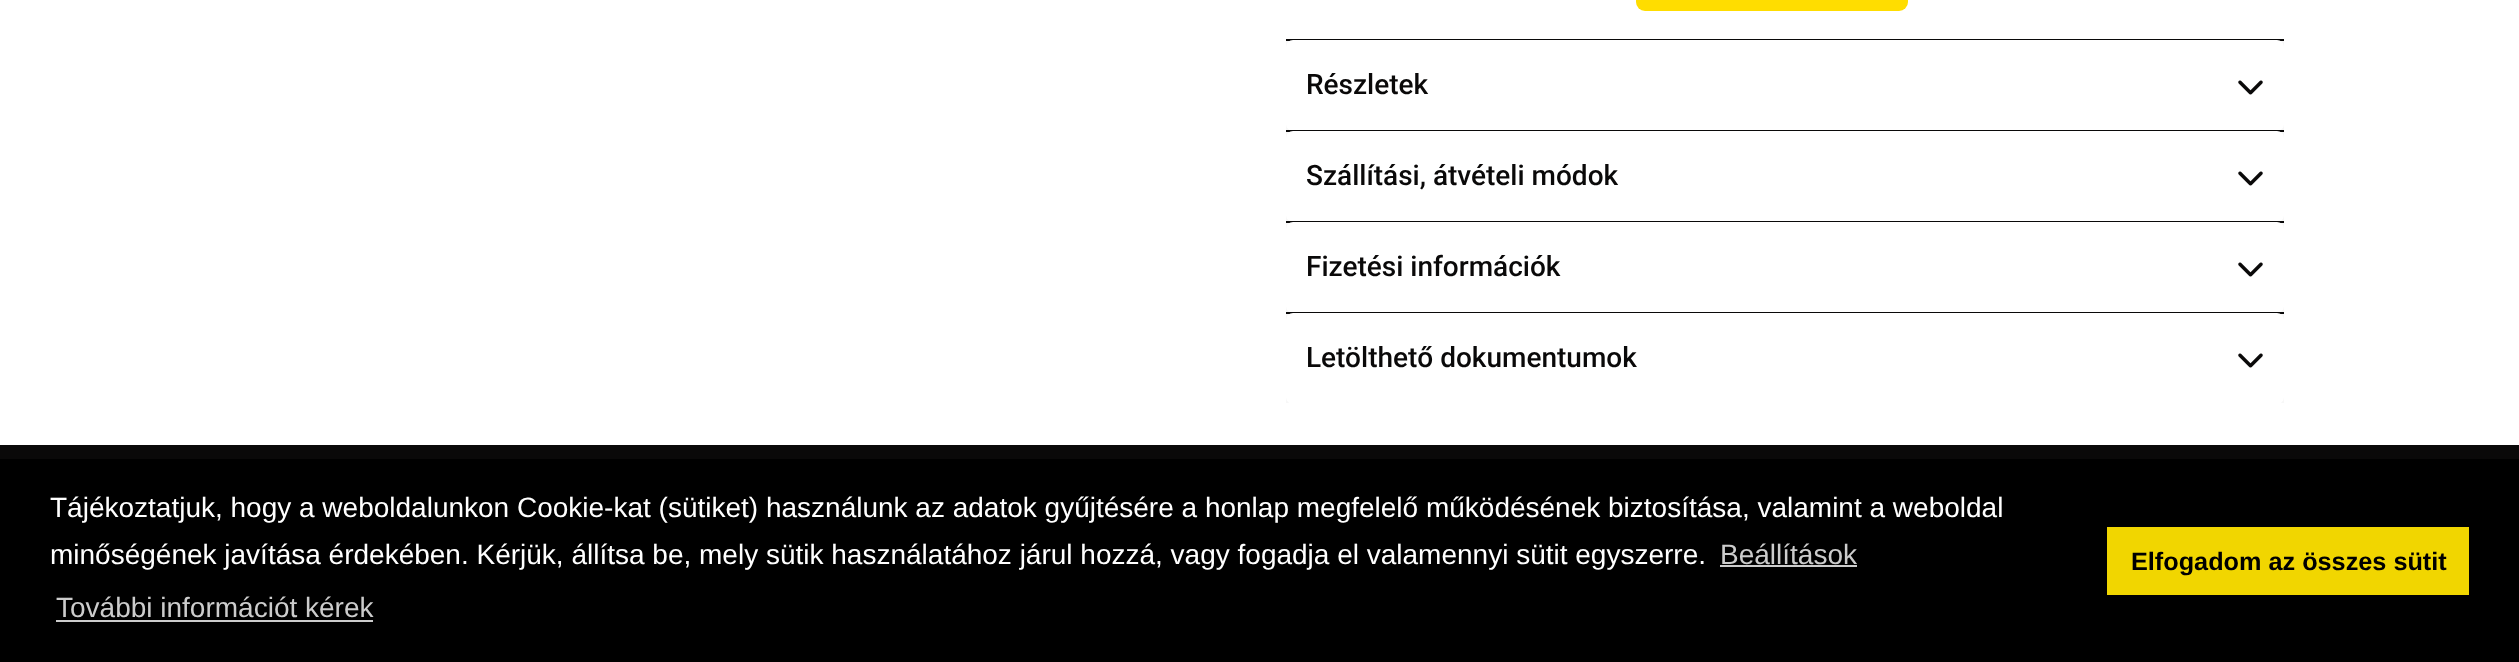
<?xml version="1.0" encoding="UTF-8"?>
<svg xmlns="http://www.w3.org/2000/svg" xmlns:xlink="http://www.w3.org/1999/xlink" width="2519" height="662">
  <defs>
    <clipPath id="clip1"><rect x="1286" y="313" width="998" height="90" /></clipPath>
  </defs>
  <rect width="100%" height="100%" fill="#ffffff" />
  <rect x="1286" y="314" width="998" height="89" fill="#f7f7f7" />
  <rect x="1286" y="223" width="998" height="89" fill="#f7f7f7" />
  <rect x="1286" y="132" width="998" height="89" fill="#f7f7f7" />
  <rect x="1286" y="41" width="998" height="89" fill="#f7f7f7" />
  <rect x="1636" y="-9" width="272" height="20" rx="9" fill="#ffdd00" />
  <rect x="1286" y="39" width="998" height="2" fill="#0a0909" />
  <rect x="1286" y="40" width="998" height="91" rx="7" fill="#ffffff" />
  <image x="2238" y="80" width="25" height="15" xlink:href="image1.png" />
  <rect x="1286" y="130" width="998" height="2" fill="#0a0909" />
  <rect x="1286" y="131" width="998" height="91" rx="7" fill="#ffffff" />
  <image x="2238" y="171" width="25" height="15" xlink:href="image1.png" />
  <rect x="1286" y="221" width="998" height="2" fill="#0a0909" />
  <rect x="1286" y="222" width="998" height="91" rx="7" fill="#ffffff" />
  <image x="2238" y="262" width="25" height="15" xlink:href="image1.png" />
  <rect x="1286" y="312" width="998" height="2" fill="#0a0909" />
  <g clip-path="url(#clip1)">
    <rect x="1286" y="313" width="998" height="91" rx="7" fill="#ffffff" />
  </g>
  <image x="2238" y="353" width="25" height="15" xlink:href="image1.png" />
  <rect y="445" width="2519" height="14" fill="#0a0909" />
  <rect y="459" width="2519" height="203" fill="#000000" />
  <rect x="1720" y="565" width="137" height="2" fill="#cccccc" />
  <rect x="56" y="620" width="317" height="2" fill="#cccccc" />
  <rect x="2107" y="527" width="362" height="68" fill="#f1d600" />
  <text x="1306" y="94" style="font-family: Roboto; font-size: 28px; font-weight: 500; fill: #0a0909">Részletek</text>
  <text x="1306" y="185" style="font-family: Roboto; font-size: 28px; font-weight: 500; fill: #0a0909">Szállítási, átvételi módok</text>
  <text x="1306" y="276" style="font-family: Roboto; font-size: 28px; font-weight: 500; fill: #0a0909">Fizetési információk</text>
  <text x="1306" y="367" style="font-family: Roboto; font-size: 28px; font-weight: 500; fill: #0a0909">Letölthető dokumentumok</text>
  <text x="50" y="517" style="font-family: Liberation Sans; font-size: 28px; fill: #ffffff">Tájékoztatjuk, hogy a weboldalunkon Cookie-kat (sütiket) használunk az adatok gyűjtésére a honlap megfelelő működésének biztosítása, valamint a weboldal</text>
  <text x="50" y="564" style="font-family: Liberation Sans; font-size: 28px; fill: #ffffff">minőségének javítása érdekében. Kérjük, állítsa be, mely sütik használatához járul hozzá, vagy fogadja el valamennyi sütit egyszerre.</text>
  <text x="1720" y="564" style="font-family: Liberation Sans; font-size: 28px; fill: #cccccc">Beállítások</text>
  <text x="56" y="617" style="font-family: Liberation Sans; font-size: 28px; fill: #cccccc">További információt kérek</text>
  <text x="2131" y="570" style="font-family: Liberation Sans; font-size: 25.25px; font-weight: bold; fill: #000000">Elfogadom az összes sütit</text>
</svg>
